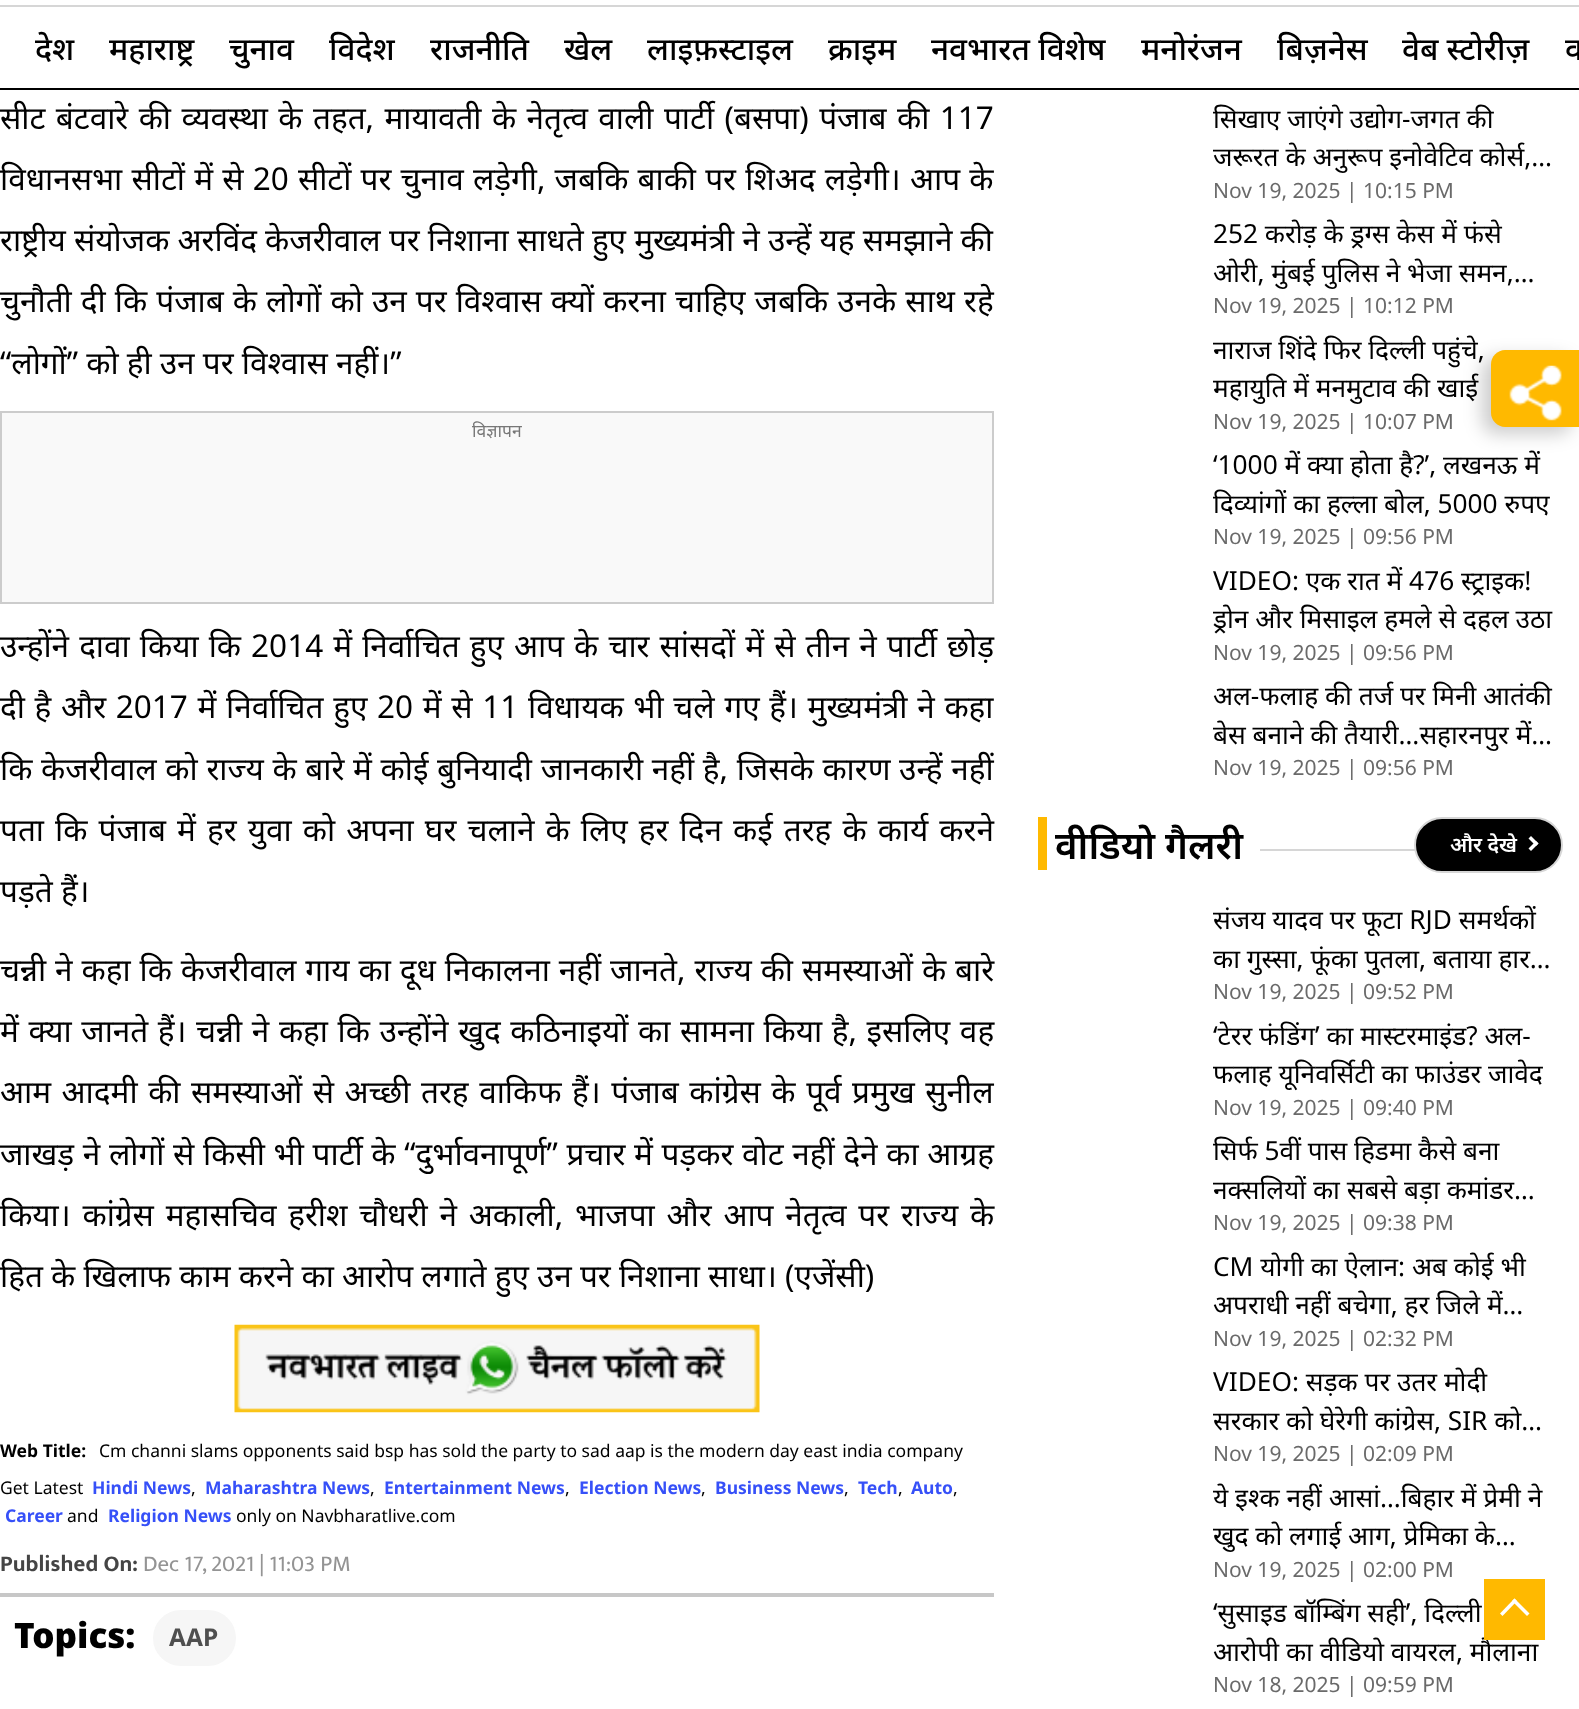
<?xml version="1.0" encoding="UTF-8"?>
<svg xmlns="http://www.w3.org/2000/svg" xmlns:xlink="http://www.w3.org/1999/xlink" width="1579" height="1709">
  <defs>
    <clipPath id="clip1"><rect x="1213" y="98" width="341" height="77" /></clipPath>
    <clipPath id="clip2"><rect x="1213" y="329" width="341" height="77" /></clipPath>
    <clipPath id="clip3"><rect x="1213" y="445" width="341" height="77" /></clipPath>
    <clipPath id="clip4"><rect x="1213" y="560" width="341" height="77" /></clipPath>
    <clipPath id="clip5"><rect x="1213" y="676" width="341" height="77" /></clipPath>
    <clipPath id="clip6"><rect x="1213" y="900" width="341" height="77" /></clipPath>
    <clipPath id="clip7"><rect x="1213" y="1015" width="341" height="77" /></clipPath>
    <clipPath id="clip8"><rect x="1213" y="1131" width="341" height="77" /></clipPath>
    <clipPath id="clip9"><rect x="1213" y="1362" width="341" height="77" /></clipPath>
    <clipPath id="clip10"><rect x="1213" y="1477" width="341" height="77" /></clipPath>
    <clipPath id="clip11"><rect x="1213" y="1593" width="341" height="77" /></clipPath>
  </defs>
  <rect width="100%" height="100%" fill="#ffffff" />
  <rect y="5" width="1579" height="2" fill="#d6d6d6" />
  <rect y="88" width="1579" height="2" fill="#000000" />
  <rect x="1" y="412" width="992" height="191" fill="#f9f9f9" stroke="#cccccc" stroke-width="2" />
  <rect x="1482" y="357" width="90" height="77" rx="14" fill="#000000" fill-opacity="0.2" filter="blur(9px)" />
  <path d="M 1505 350 h 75 v 77 h -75 c -7.5 0 -14 -6.5 -14 -14 v -49 c 0 -7.5 6.5 -14 14 -14 z" fill="#ffb900" />
  <image x="1509" y="365" width="53" height="56" xlink:href="image1.png" />
  <image x="234" y="1324" width="526" height="89" xlink:href="image2.png" />
  <rect y="1593" width="994" height="4" fill="#c7c7c7" />
  <rect x="152" y="1609" width="85" height="58" rx="29" fill="#f6f6f6" stroke="#ffffff" stroke-width="2" />
  <rect x="1038" y="817" width="9" height="53" fill="#ffb900" />
  <rect x="1260" y="849" width="155" height="2" fill="#d6d6d6" />
  <rect x="1415" y="818" width="147" height="54" rx="27" fill="#000000" stroke="#d6d6d6" stroke-width="2" />
  <path d="M 1528.5 838.5 l 2.5 -2.5 l 7.5 7.5 l -2.5 2.5 z" fill="#ffffff" />
  <path d="M 1528.5 848.5 l 7.5 -7.5 l 2.5 2.5 l -7.5 7.5 z" fill="#ffffff" />
  <text x="35" y="60" style="font-family: Noto Sans; font-size: 31.5px; font-weight: 500; fill: #000000">देश</text>
  <text x="109" y="60" style="font-family: Noto Sans; font-size: 31.5px; font-weight: 500; fill: #000000">महाराष्ट्र</text>
  <text x="229" y="60" style="font-family: Noto Sans; font-size: 31.5px; font-weight: 500; fill: #000000">चुनाव</text>
  <text x="329" y="60" style="font-family: Noto Sans; font-size: 31.5px; font-weight: 500; fill: #000000">विदेश</text>
  <text x="430" y="60" style="font-family: Noto Sans; font-size: 31.5px; font-weight: 500; fill: #000000">राजनीति</text>
  <text x="564" y="60" style="font-family: Noto Sans; font-size: 31.5px; font-weight: 500; fill: #000000">खेल</text>
  <text x="647" y="60" style="font-family: Noto Sans; font-size: 31.5px; font-weight: 500; fill: #000000">लाइफ़स्टाइल</text>
  <text x="828" y="60" style="font-family: Noto Sans; font-size: 31.5px; font-weight: 500; fill: #000000">क्राइम</text>
  <text x="931" y="60" style="font-family: Noto Sans; font-size: 31.5px; font-weight: 500; fill: #000000">नवभारत विशेष</text>
  <text x="1141" y="60" style="font-family: Noto Sans; font-size: 31.5px; font-weight: 500; fill: #000000">मनोरंजन</text>
  <text x="1277" y="60" style="font-family: Noto Sans; font-size: 31.5px; font-weight: 500; fill: #000000">बिज़नेस</text>
  <text x="1402" y="60" style="font-family: Noto Sans; font-size: 31.5px; font-weight: 500; fill: #000000">वेब स्टोरीज़</text>
  <text x="1565" y="60" style="font-family: Noto Sans; font-size: 31.5px; font-weight: 500; fill: #000000">व</text>
  <text x="0" y="129" word-spacing="2.25" style="font-family: Noto Sans; font-size: 31.5px; fill: #000000">सीट बंटवारे की व्यवस्था के तहत, मायावती के नेतृत्व वाली पार्टी (बसपा) पंजाब की 117</text>
  <text x="0" y="190" word-spacing="1" style="font-family: Noto Sans; font-size: 31.5px; fill: #000000">विधानसभा सीटों में से 20 सीटों पर चुनाव लड़ेगी, जबकि बाकी पर शिअद लड़ेगी। आप के</text>
  <text x="0" y="251" style="font-family: Noto Sans; font-size: 31.5px; fill: #000000">राष्ट्रीय संयोजक अरविंद केजरीवाल पर निशाना साधते हुए मुख्यमंत्री ने उन्हें यह समझाने की</text>
  <text x="0" y="312" word-spacing="0.9" style="font-family: Noto Sans; font-size: 31.5px; fill: #000000">चुनौती दी कि पंजाब के लोगों को उन पर विश्वास क्यों करना चाहिए जबकि उनके साथ रहे</text>
  <text x="0" y="374" style="font-family: Noto Sans; font-size: 31.5px; fill: #000000">“लोगों” को ही उन पर विश्वास नहीं।”</text>
  <text x="472" y="437" style="font-family: Noto Sans; font-size: 17.5px; fill: #777777">विज्ञापन</text>
  <text x="0" y="657" word-spacing="1.9" style="font-family: Noto Sans; font-size: 31.5px; fill: #000000">उन्होंने दावा किया कि 2014 में निर्वाचित हुए आप के चार सांसदों में से तीन ने पार्टी छोड़</text>
  <text x="0" y="718" word-spacing="1.5" style="font-family: Noto Sans; font-size: 31.5px; fill: #000000">दी है और 2017 में निर्वाचित हुए 20 में से 11 विधायक भी चले गए हैं। मुख्यमंत्री ने कहा</text>
  <text x="0" y="780" word-spacing="0.5" style="font-family: Noto Sans; font-size: 31.5px; fill: #000000">कि केजरीवाल को राज्य के बारे में कोई बुनियादी जानकारी नहीं है, जिसके कारण उन्हें नहीं</text>
  <text x="0" y="841" word-spacing="2.9" style="font-family: Noto Sans; font-size: 31.5px; fill: #000000">पता कि पंजाब में हर युवा को अपना घर चलाने के लिए हर दिन कई तरह के कार्य करने</text>
  <text x="0" y="902" style="font-family: Noto Sans; font-size: 31.5px; fill: #000000">पड़ते हैं।</text>
  <text x="0" y="981" word-spacing="0.75" style="font-family: Noto Sans; font-size: 31.5px; fill: #000000">चन्नी ने कहा कि केजरीवाल गाय का दूध निकालना नहीं जानते, राज्य की समस्याओं के बारे</text>
  <text x="0" y="1042" word-spacing="1.4" style="font-family: Noto Sans; font-size: 31.5px; fill: #000000">में क्या जानते हैं। चन्नी ने कहा कि उन्होंने खुद कठिनाइयों का सामना किया है, इसलिए वह</text>
  <text x="0" y="1103" word-spacing="2.4" style="font-family: Noto Sans; font-size: 31.5px; fill: #000000">आम आदमी की समस्याओं से अच्छी तरह वाकिफ हैं। पंजाब कांग्रेस के पूर्व प्रमुख सुनील</text>
  <text x="0" y="1165" word-spacing="0.5" style="font-family: Noto Sans; font-size: 31.5px; fill: #000000">जाखड़ ने लोगों से किसी भी पार्टी के “दुर्भावनापूर्ण” प्रचार में पड़कर वोट नहीं देने का आग्रह</text>
  <text x="0" y="1226" word-spacing="3.6" style="font-family: Noto Sans; font-size: 31.5px; fill: #000000">किया। कांग्रेस महासचिव हरीश चौधरी ने अकाली, भाजपा और आप नेतृत्व पर राज्य के</text>
  <text x="0" y="1287" style="font-family: Noto Sans; font-size: 31.5px; fill: #000000">हित के खिलाफ काम करने का आरोप लगाते हुए उन पर निशाना साधा। (एजेंसी)</text>
  <text x="0" y="1457" style="font-family: Noto Sans; font-size: 17.5px; font-weight: bold; fill: #000000">Web Title:</text>
  <text x="99" y="1457" style="font-family: Noto Sans; font-size: 17.5px; fill: #000000">Cm channi slams opponents said bsp has sold the party to sad aap is the modern day east india company</text>
  <text x="0" y="1494" style="font-family: Noto Sans; font-size: 17.5px; fill: #000000">Get Latest</text>
  <text x="92" y="1494" style="font-family: Noto Sans; font-size: 17.5px; font-weight: bold; fill: #3650f8">Hindi News</text>
  <text x="191" y="1494" style="font-family: Noto Sans; font-size: 17.5px; fill: #000000">,</text>
  <text x="205" y="1494" style="font-family: Noto Sans; font-size: 17.5px; font-weight: bold; fill: #3650f8">Maharashtra News</text>
  <text x="370" y="1494" style="font-family: Noto Sans; font-size: 17.5px; fill: #000000">,</text>
  <text x="384" y="1494" style="font-family: Noto Sans; font-size: 17.5px; font-weight: bold; fill: #3650f8">Entertainment News</text>
  <text x="565" y="1494" style="font-family: Noto Sans; font-size: 17.5px; fill: #000000">,</text>
  <text x="579" y="1494" style="font-family: Noto Sans; font-size: 17.5px; font-weight: bold; fill: #3650f8">Election News</text>
  <text x="701" y="1494" style="font-family: Noto Sans; font-size: 17.5px; fill: #000000">,</text>
  <text x="715" y="1494" style="font-family: Noto Sans; font-size: 17.5px; font-weight: bold; fill: #3650f8">Business News</text>
  <text x="844" y="1494" style="font-family: Noto Sans; font-size: 17.5px; fill: #000000">,</text>
  <text x="858" y="1494" style="font-family: Noto Sans; font-size: 17.5px; font-weight: bold; fill: #3650f8">Tech</text>
  <text x="898" y="1494" style="font-family: Noto Sans; font-size: 17.5px; fill: #000000">,</text>
  <text x="911" y="1494" style="font-family: Noto Sans; font-size: 17.5px; font-weight: bold; fill: #3650f8">Auto</text>
  <text x="953" y="1494" style="font-family: Noto Sans; font-size: 17.5px; fill: #000000">,</text>
  <text x="5" y="1522" style="font-family: Noto Sans; font-size: 17.5px; font-weight: bold; fill: #3650f8">Career</text>
  <text x="67" y="1522" style="font-family: Noto Sans; font-size: 17.5px; fill: #000000">and</text>
  <text x="108" y="1522" style="font-family: Noto Sans; font-size: 17.5px; font-weight: bold; fill: #3650f8">Religion News</text>
  <text x="236" y="1522" style="font-family: Noto Sans; font-size: 17.5px; fill: #000000">only on Navbharatlive.com</text>
  <text x="0" y="1571" style="font-family: Mukta; font-size: 22.75px; font-weight: bold; fill: #454545">Published On:</text>
  <text x="143" y="1571" style="font-family: Mukta; font-size: 22.75px; fill: #949494">Dec 17, 2021 | 11:03 PM</text>
  <text x="14" y="1648" style="font-family: Noto Sans; font-size: 35px; font-weight: 900; fill: #000000">Topics:</text>
  <text x="169" y="1646" style="font-family: Noto Sans; font-size: 24.5px; font-weight: bold; fill: #4f4f4f">AAP</text>
  <g clip-path="url(#clip1)">
    <text x="1213" y="128" style="font-family: Noto Sans; font-size: 26.25px; fill: #000000">सिखाए जाएंगे उद्योग-जगत की</text>
    <text x="1213" y="166" style="font-family: Noto Sans; font-size: 26.25px; fill: #000000">जरूरत के अनुरूप इनोवेटिव कोर्स,…</text>
  </g>
  <text x="1213" y="198" style="font-family: Noto Sans; font-size: 21px; fill: #6a6a6a">Nov 19, 2025 | 10:15 PM</text>
  <text x="1213" y="243" style="font-family: Noto Sans; font-size: 26.25px; fill: #000000">252 करोड़ के ड्रग्स केस में फंसे</text>
  <text x="1213" y="282" style="font-family: Noto Sans; font-size: 26.25px; fill: #000000">ओरी, मुंबई पुलिस ने भेजा समन,…</text>
  <text x="1213" y="313" style="font-family: Noto Sans; font-size: 21px; fill: #6a6a6a">Nov 19, 2025 | 10:12 PM</text>
  <g clip-path="url(#clip2)">
    <text x="1213" y="359" style="font-family: Noto Sans; font-size: 26.25px; fill: #000000">नाराज शिंदे फिर दिल्ली पहुंचे,</text>
    <text x="1213" y="397" style="font-family: Noto Sans; font-size: 26.25px; fill: #000000">महायुति में मनमुटाव की खाई</text>
  </g>
  <text x="1213" y="429" style="font-family: Noto Sans; font-size: 21px; fill: #6a6a6a">Nov 19, 2025 | 10:07 PM</text>
  <text x="1213" y="474" style="font-family: Noto Sans; font-size: 26.25px; fill: #000000">‘1000 में क्या होता है?’, लखनऊ में</text>
  <g clip-path="url(#clip3)">
    <text x="1213" y="513" style="font-family: Noto Sans; font-size: 26.25px; fill: #000000">दिव्यांगों का हल्ला बोल, 5000 रुपए</text>
  </g>
  <text x="1213" y="544" style="font-family: Noto Sans; font-size: 21px; fill: #6a6a6a">Nov 19, 2025 | 09:56 PM</text>
  <text x="1213" y="590" style="font-family: Noto Sans; font-size: 26.25px; fill: #000000">VIDEO: एक रात में 476 स्ट्राइक!</text>
  <g clip-path="url(#clip4)">
    <text x="1213" y="628" style="font-family: Noto Sans; font-size: 26.25px; fill: #000000">ड्रोन और मिसाइल हमले से दहल उठा</text>
  </g>
  <text x="1213" y="660" style="font-family: Noto Sans; font-size: 21px; fill: #6a6a6a">Nov 19, 2025 | 09:56 PM</text>
  <text x="1213" y="705" style="font-family: Noto Sans; font-size: 26.25px; fill: #000000">अल-फलाह की तर्ज पर मिनी आतंकी</text>
  <g clip-path="url(#clip5)">
    <text x="1213" y="744" style="font-family: Noto Sans; font-size: 26.25px; fill: #000000">बेस बनाने की तैयारी…सहारनपुर में…</text>
  </g>
  <text x="1213" y="775" style="font-family: Noto Sans; font-size: 21px; fill: #6a6a6a">Nov 19, 2025 | 09:56 PM</text>
  <text x="1055" y="859" style="font-family: Noto Sans; font-size: 38.5px; font-weight: 600; fill: #000000">वीडियो गैलरी</text>
  <text x="1450" y="852" style="font-family: Noto Sans; font-size: 21px; font-weight: 600; fill: #ffffff">और देखे</text>
  <g clip-path="url(#clip6)">
    <text x="1213" y="929" style="font-family: Noto Sans; font-size: 26.25px; fill: #000000">संजय यादव पर फूटा RJD समर्थकों</text>
    <text x="1213" y="968" style="font-family: Noto Sans; font-size: 26.25px; fill: #000000">का गुस्सा, फूंका पुतला, बताया हार…</text>
  </g>
  <text x="1213" y="999" style="font-family: Noto Sans; font-size: 21px; fill: #6a6a6a">Nov 19, 2025 | 09:52 PM</text>
  <g clip-path="url(#clip7)">
    <text x="1213" y="1045" style="font-family: Noto Sans; font-size: 26.25px; fill: #000000">‘टेरर फंडिंग’ का मास्टरमाइंड? अल-</text>
    <text x="1213" y="1083" style="font-family: Noto Sans; font-size: 26.25px; fill: #000000">फलाह यूनिवर्सिटी का फाउंडर जावेद</text>
  </g>
  <text x="1213" y="1115" style="font-family: Noto Sans; font-size: 21px; fill: #6a6a6a">Nov 19, 2025 | 09:40 PM</text>
  <g clip-path="url(#clip8)">
    <text x="1213" y="1160" style="font-family: Noto Sans; font-size: 26.25px; fill: #000000">सिर्फ 5वीं पास हिडमा कैसे बना</text>
    <text x="1213" y="1199" style="font-family: Noto Sans; font-size: 26.25px; fill: #000000">नक्सलियों का सबसे बड़ा कमांडर…</text>
  </g>
  <text x="1213" y="1230" style="font-family: Noto Sans; font-size: 21px; fill: #6a6a6a">Nov 19, 2025 | 09:38 PM</text>
  <text x="1213" y="1276" style="font-family: Noto Sans; font-size: 26.25px; fill: #000000">CM योगी का ऐलान: अब कोई भी</text>
  <text x="1213" y="1314" style="font-family: Noto Sans; font-size: 26.25px; fill: #000000">अपराधी नहीं बचेगा, हर जिले में…</text>
  <text x="1213" y="1346" style="font-family: Noto Sans; font-size: 21px; fill: #6a6a6a">Nov 19, 2025 | 02:32 PM</text>
  <text x="1213" y="1391" style="font-family: Noto Sans; font-size: 26.25px; fill: #000000">VIDEO: सड़क पर उतर मोदी</text>
  <g clip-path="url(#clip9)">
    <text x="1213" y="1430" style="font-family: Noto Sans; font-size: 26.25px; fill: #000000">सरकार को घेरेगी कांग्रेस, SIR को…</text>
  </g>
  <text x="1213" y="1461" style="font-family: Noto Sans; font-size: 21px; fill: #6a6a6a">Nov 19, 2025 | 02:09 PM</text>
  <g clip-path="url(#clip10)">
    <text x="1213" y="1507" style="font-family: Noto Sans; font-size: 26.25px; fill: #000000">ये इश्क नहीं आसां…बिहार में प्रेमी ने</text>
    <text x="1213" y="1545" style="font-family: Noto Sans; font-size: 26.25px; fill: #000000">खुद को लगाई आग, प्रेमिका के…</text>
  </g>
  <text x="1213" y="1577" style="font-family: Noto Sans; font-size: 21px; fill: #6a6a6a">Nov 19, 2025 | 02:00 PM</text>
  <g clip-path="url(#clip11)">
    <text x="1213" y="1622" style="font-family: Noto Sans; font-size: 26.25px; fill: #000000">‘सुसाइड बॉम्बिंग सही’, दिल्ली</text>
  </g>
  <text x="1213" y="1661" style="font-family: Noto Sans; font-size: 26.25px; fill: #000000">आरोपी का वीडियो वायरल, मौलाना</text>
  <text x="1213" y="1692" style="font-family: Noto Sans; font-size: 21px; fill: #6a6a6a">Nov 18, 2025 | 09:59 PM</text>
  <rect x="1484" y="1579" width="61" height="61" fill="#ffb900" />
  <path d="M 1502.5 1616 l -2.5 -2.5 l 14.5 -15 l 2.5 2.5 z" fill="#ffffff" />
  <path d="M 1527 1616 l -15 -15 l 2.5 -2.5 l 15 15 z" fill="#ffffff" />
</svg>
